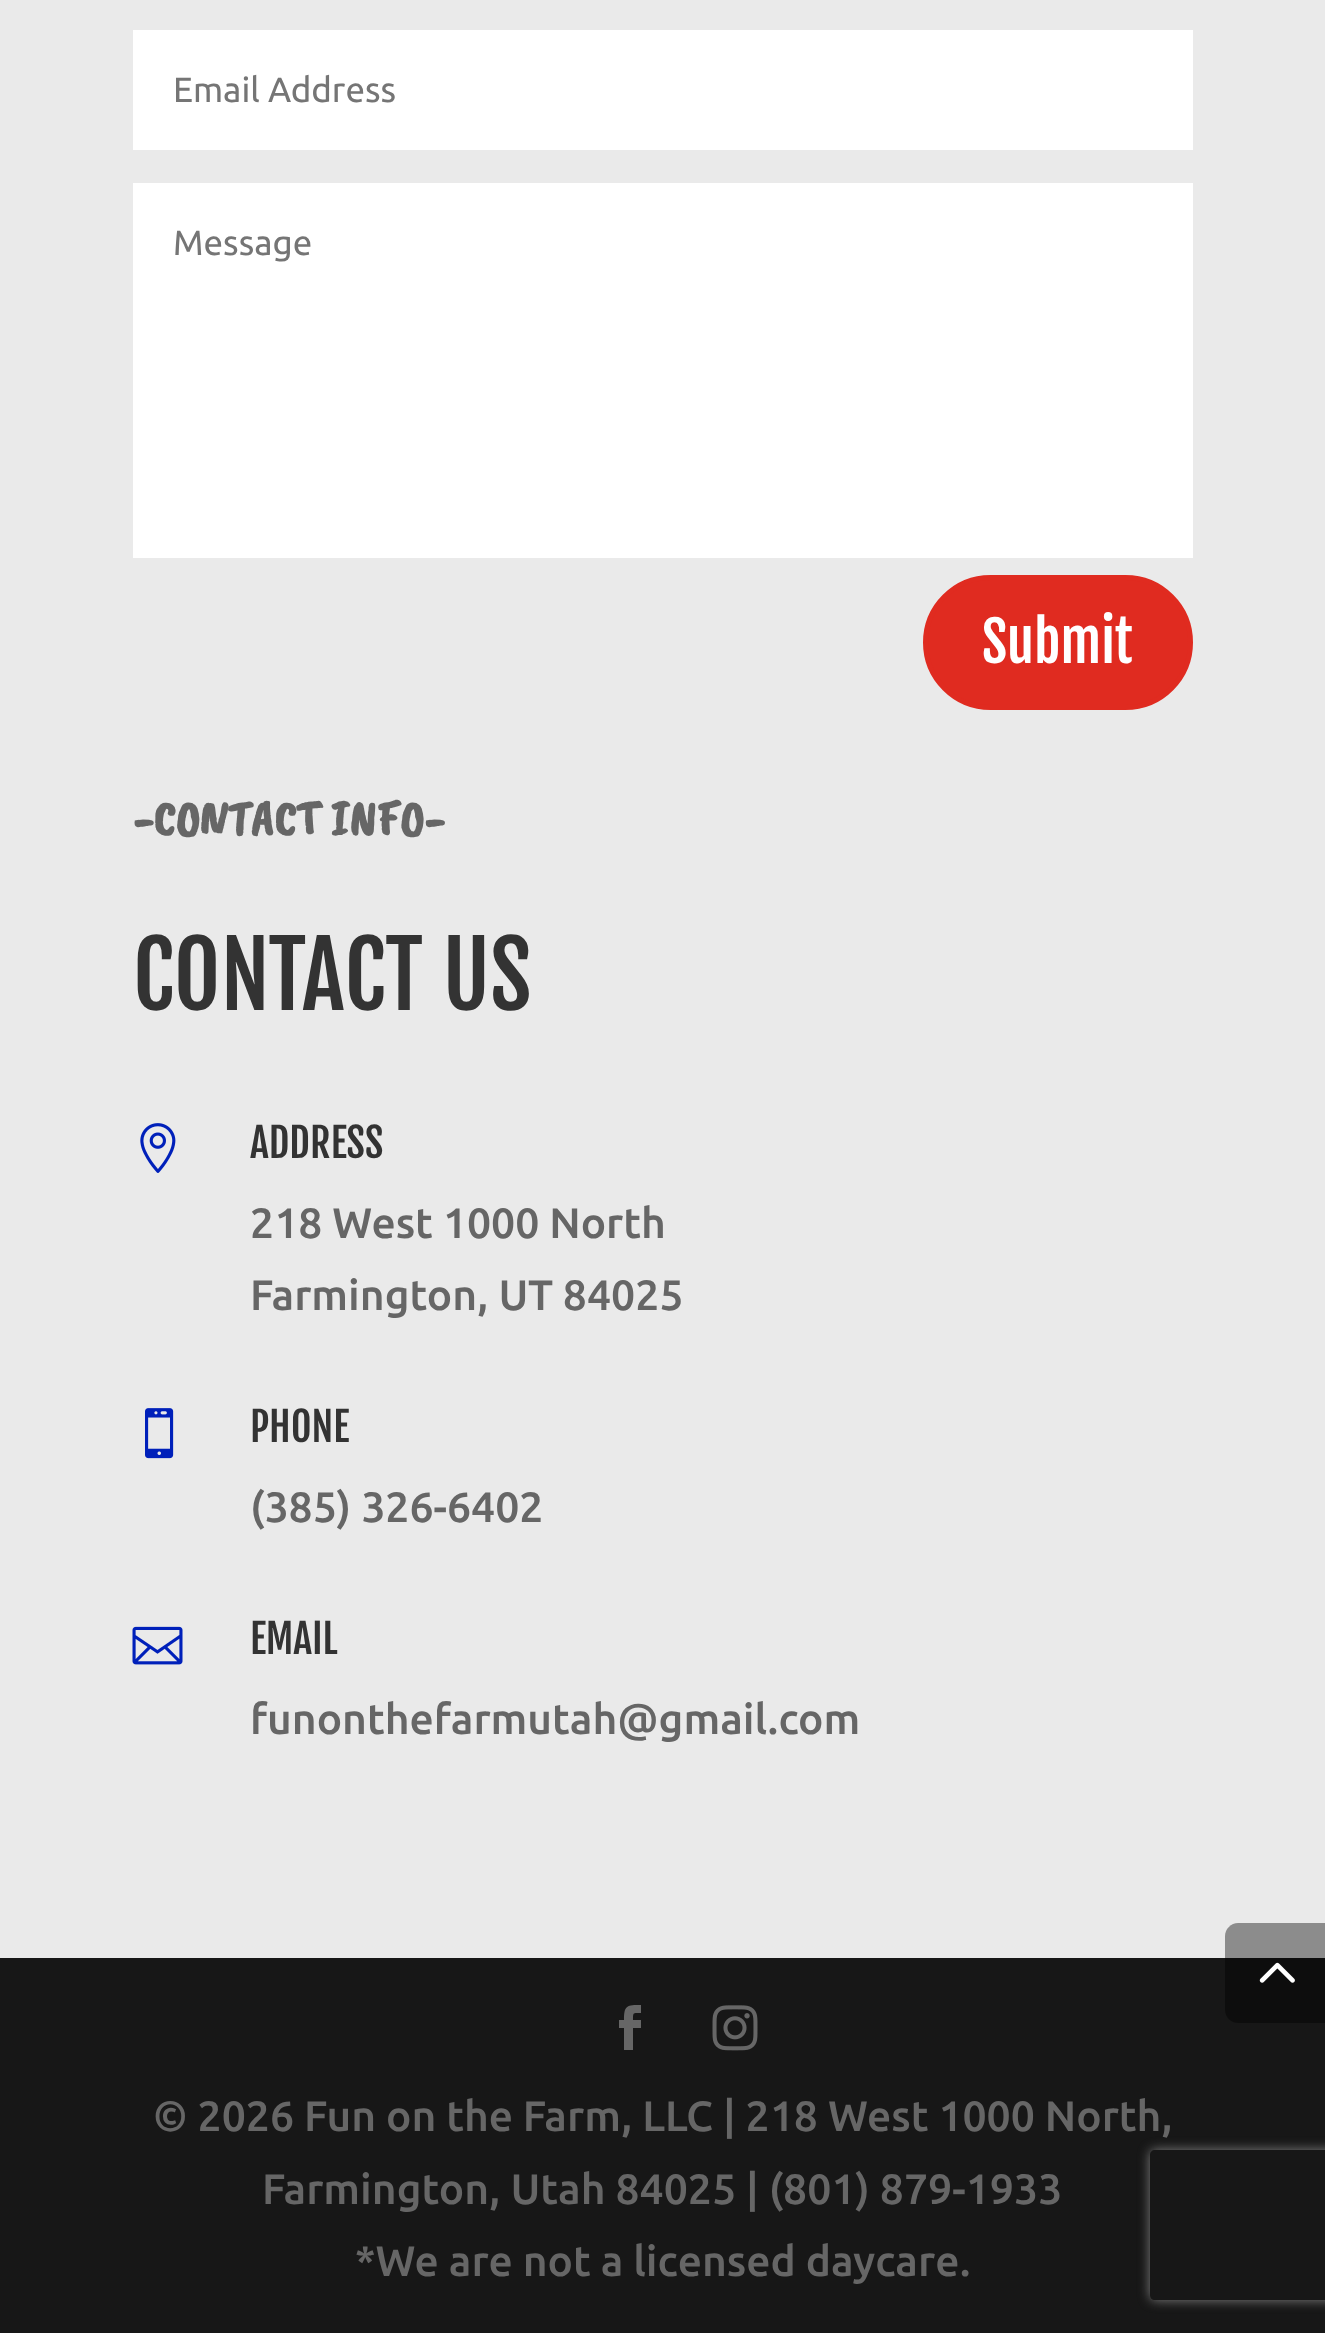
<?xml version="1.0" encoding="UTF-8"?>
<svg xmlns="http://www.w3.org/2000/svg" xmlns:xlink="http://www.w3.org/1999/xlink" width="1325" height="2333">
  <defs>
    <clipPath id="clip1"><path d="M 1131 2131 h 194 v 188 h -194 z m 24 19 h 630 c 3 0 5 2 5 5 v 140 c 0 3 -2 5 -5 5 h -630 c -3 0 -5 -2 -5 -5 v -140 c 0 -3 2 -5 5 -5 z" clip-rule="evenodd" /></clipPath>
  </defs>
  <rect width="100%" height="100%" fill="#171717" />
  <rect width="1325" height="1958" fill="#eaeaea" />
  <rect x="133" y="30" width="1060" height="120" fill="#ffffff" />
  <rect x="133" y="183" width="1060" height="375" fill="#ffffff" />
  <rect x="925.5" y="577.5" width="265" height="130" rx="65" fill="#e02b20" stroke="#e02b20" stroke-width="5" />
  <image x="140" y="1123" width="36" height="50" xlink:href="image1.png" />
  <image x="145" y="1408" width="29" height="51" xlink:href="image2.png" />
  <image x="132" y="1626" width="51" height="39" xlink:href="image3.png" />
  <path d="M 1238 1923 h 87 v 100 h -87 c -7 0 -13 -6 -13 -13 v -74 c 0 -7 6 -13 13 -13 z" fill="#000000" fill-opacity="0.4" />
  <image x="1259" y="1962" width="36" height="21" xlink:href="image4.png" />
  <path d="M 624 2050 h 9 v -22 h 8 v -8 h -8 c 0 -8 0 -7 8 -7 v -8 c -14 0 -17 0 -17 15 h -5 v 8 h 5 z" fill="#666666" />
  <image x="712" y="2005" width="46" height="46" xlink:href="image5.png" />
  <g clip-path="url(#clip1)">
    <rect x="1150" y="2150" width="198" height="150" rx="5" fill="#808080" filter="blur(6px)" />
  </g>
  <text x="173" y="102" style="font-family: Ubuntu; font-size: 35px; fill: #757575">Email Address</text>
  <text x="173" y="255" style="font-family: Ubuntu; font-size: 35px; fill: #757575">Message</text>
  <text x="982" y="663" style="font-family: Fjalla One; font-size: 55px; fill: #ffffff">Submit</text>
  <text x="133" y="835" style="font-family: Caveat Brush; font-size: 50px; font-weight: bold; fill: #666666">-CONTACT INFO-</text>
  <text x="133" y="1010" style="font-family: Fjalla One; font-size: 90px; fill: #333333">CONTACT US</text>
  <text x="250" y="1158" style="font-family: Fjalla One; font-size: 40px; fill: #333333">ADDRESS</text>
  <text x="250" y="1238" style="font-family: Ubuntu; font-size: 42.5px; font-weight: 500; fill: #666666">218 West 1000 North</text>
  <text x="250" y="1310" style="font-family: Ubuntu; font-size: 42.5px; font-weight: 500; fill: #666666">Farmington, UT 84025</text>
  <text x="250" y="1442" style="font-family: Fjalla One; font-size: 40px; fill: #333333">PHONE</text>
  <text x="250" y="1522" style="font-family: Ubuntu; font-size: 42.5px; font-weight: 500; fill: #666666">(385) 326-6402</text>
  <text x="250" y="1654" style="font-family: Fjalla One; font-size: 40px; fill: #333333">EMAIL</text>
  <text x="250" y="1734" style="font-family: Ubuntu; font-size: 42.5px; font-weight: 500; fill: #666666">funonthefarmutah@gmail.com</text>
  <text x="153" y="2131" style="font-family: Ubuntu; font-size: 42.5px; font-weight: 500; fill: #666666">© 2026 Fun on the Farm, LLC | 218 West 1000 North,</text>
  <text x="262" y="2204" style="font-family: Ubuntu; font-size: 42.5px; font-weight: 500; fill: #666666">Farmington, Utah 84025 | (801) 879-1933</text>
  <text x="355" y="2276" style="font-family: Ubuntu; font-size: 42.5px; font-weight: 500; fill: #666666">*We are not a licensed daycare.</text>
</svg>
